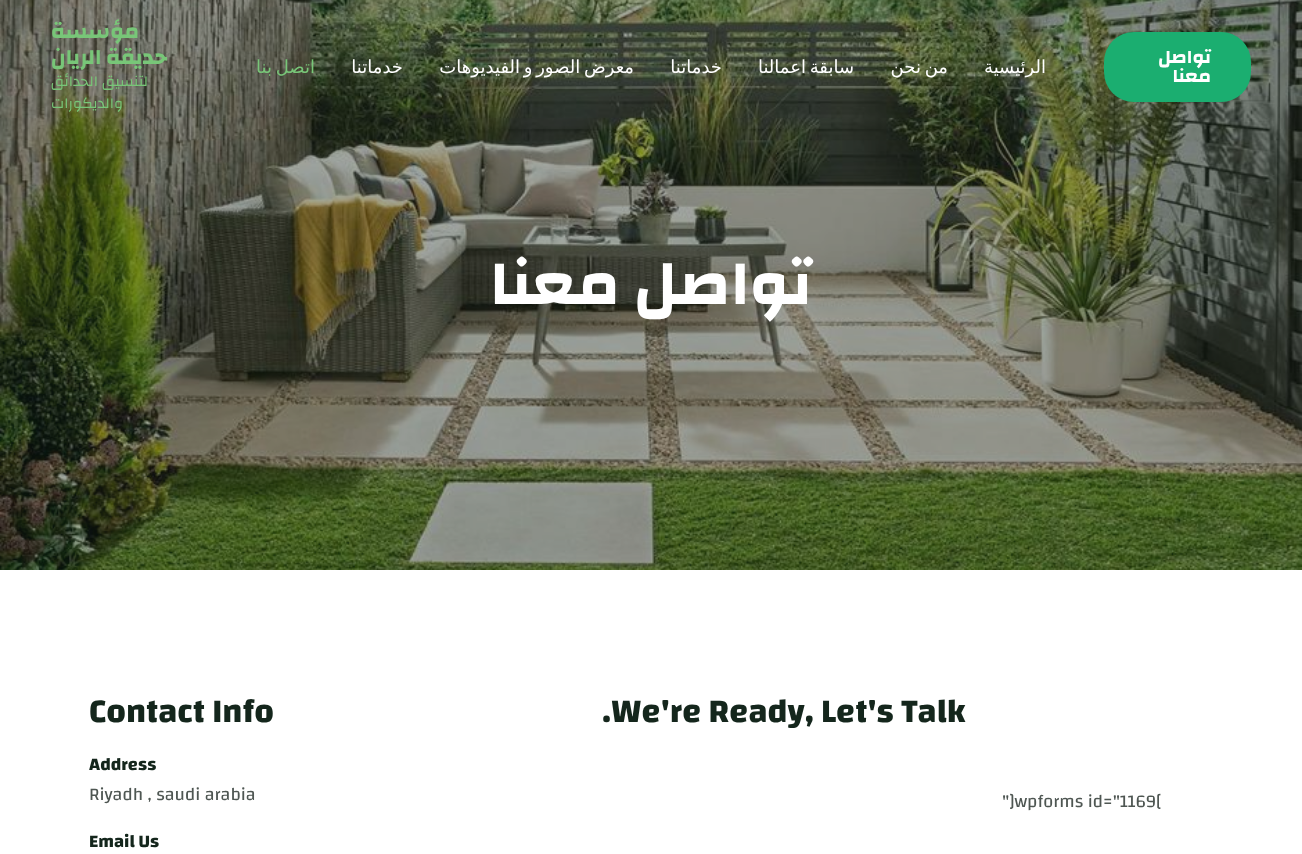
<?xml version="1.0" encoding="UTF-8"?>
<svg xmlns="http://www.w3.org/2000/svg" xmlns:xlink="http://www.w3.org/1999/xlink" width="1302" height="854">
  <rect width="100%" height="100%" fill="#ffffff" />
  <image x="0" y="0" width="1302" height="570" xlink:href="image1.png" />
  <rect x="1104" y="32" width="147" height="70" rx="30" fill="#1bae70" />
  <text x="1211" y="63" style="font-family: Changa; font-size: 19px; font-weight: bold; direction: rtl; fill: #ffffff">تواصل</text>
  <text x="1211" y="82" style="font-family: Changa; font-size: 19px; font-weight: bold; direction: rtl; fill: #ffffff">معنا</text>
  <text x="1046" y="73" style="font-family: DejaVu Sans; font-size: 18px; direction: rtl; fill: #ffffff">الرئيسية</text>
  <text x="948" y="73" word-spacing="-2" style="font-family: DejaVu Sans; font-size: 18px; direction: rtl; fill: #ffffff">من نحن</text>
  <text x="854" y="73" word-spacing="-2" style="font-family: DejaVu Sans; font-size: 18px; direction: rtl; fill: #ffffff">سابقة اعمالنا</text>
  <text x="722" y="73" style="font-family: DejaVu Sans; font-size: 18px; direction: rtl; fill: #ffffff">خدماتنا</text>
  <text x="634" y="73" word-spacing="-2" style="font-family: DejaVu Sans; font-size: 18px; direction: rtl; fill: #ffffff">معرض الصور و الفيديوهات</text>
  <text x="403" y="73" style="font-family: DejaVu Sans; font-size: 18px; direction: rtl; fill: #ffffff">خدماتنا</text>
  <text x="315" y="73" word-spacing="-2" style="font-family: DejaVu Sans; font-size: 18px; direction: rtl; fill: #78c678">اتصل بنا</text>
  <text x="139" y="38" style="font-family: Changa; font-size: 22px; font-weight: bold; direction: rtl; fill: #78c678">مؤسسة</text>
  <text x="167" y="64" style="font-family: Changa; font-size: 22px; font-weight: bold; direction: rtl; fill: #78c678">حديقة الريان</text>
  <text x="148" y="86" style="font-family: Changa; font-size: 15px; direction: rtl; fill: #78c678">لتنسيق الحدائق</text>
  <text x="123" y="108" style="font-family: Changa; font-size: 15px; direction: rtl; fill: #78c678">والديكورات</text>
  <text x="812" y="304" style="font-family: Changa; font-size: 64px; font-weight: bold; direction: rtl; fill: #ffffff">تواصل معنا</text>
  <text x="602" y="722" style="font-family: Changa; font-size: 34px; font-weight: bold; fill: #14261c">.We're Ready, Let's Talk</text>
  <text x="1002" y="807" style="font-family: Changa; font-size: 18px; fill: #4e5652">"]wpforms id="1169[</text>
  <text x="89" y="722" style="font-family: Changa; font-size: 34px; font-weight: bold; fill: #14261c">Contact Info</text>
  <text x="89" y="770" style="font-family: Changa; font-size: 18px; font-weight: bold; fill: #14261c">Address</text>
  <text x="89" y="800" style="font-family: Changa; font-size: 18px; fill: #4e5652">Riyadh , saudi arabia</text>
  <text x="89" y="847" style="font-family: Changa; font-size: 18px; font-weight: bold; fill: #14261c">Email Us</text>
</svg>
